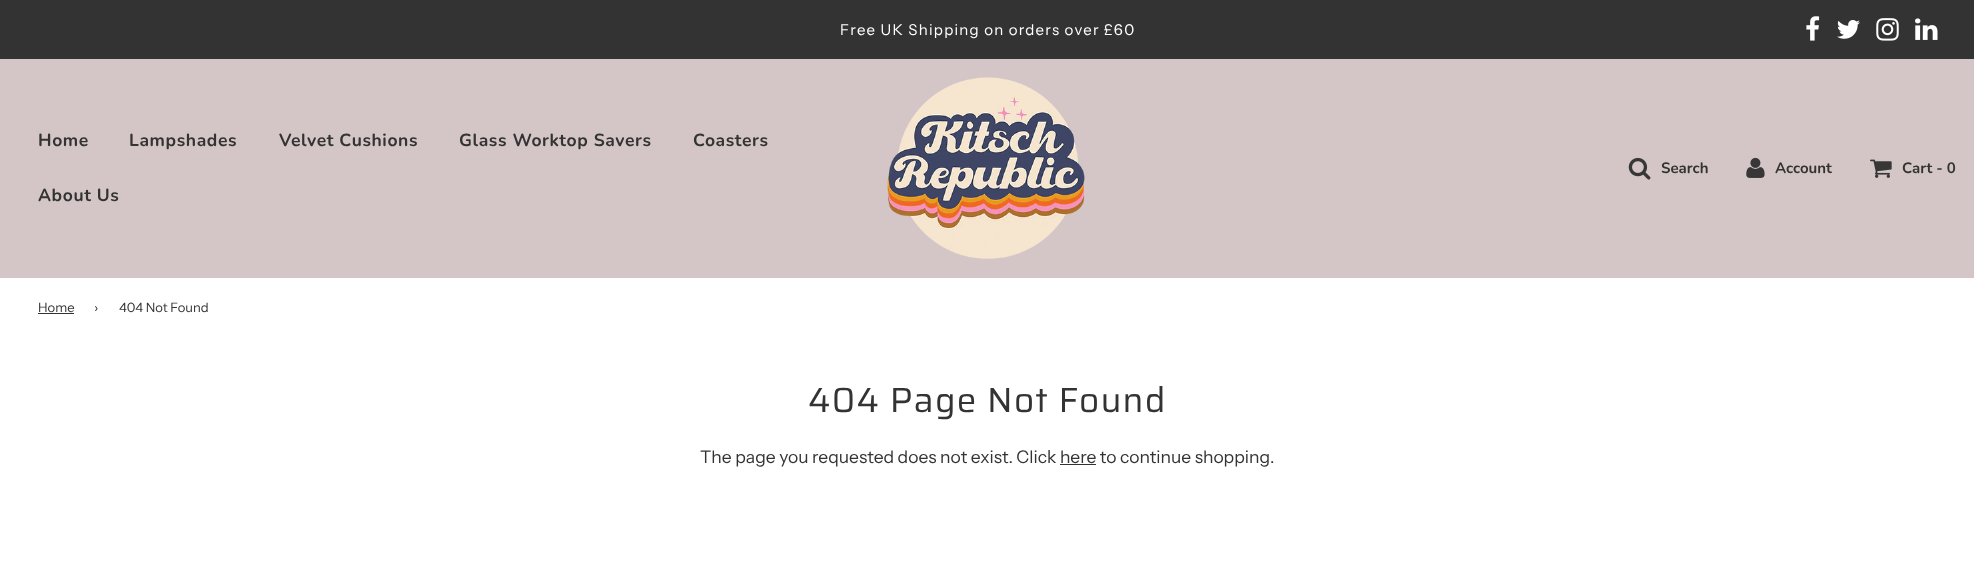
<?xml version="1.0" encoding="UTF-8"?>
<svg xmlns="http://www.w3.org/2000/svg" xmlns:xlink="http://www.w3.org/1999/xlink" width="1974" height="584">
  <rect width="100%" height="100%" fill="#ffffff" />
  <rect width="1974" height="59" fill="#333333" />
  <image x="1806" y="16" width="14" height="25" xlink:href="image1.png" />
  <image x="1837" y="20" width="23" height="19" xlink:href="image2.png" />
  <image x="1876" y="18" width="23" height="23" xlink:href="image3.png" />
  <image x="1915" y="18" width="23" height="22" xlink:href="image4.png" />
  <rect y="59" width="1974" height="219" fill="#d4c6c6" />
  <image x="887" y="77" width="198" height="182" xlink:href="image5.png" />
  <image x="1628" y="157" width="23" height="23" xlink:href="image6.png" />
  <image x="1746" y="157" width="19" height="21" xlink:href="image7.png" />
  <image x="1870" y="159" width="22" height="19" xlink:href="image8.png" />
  <rect x="38" y="313" width="36" height="1" fill="#333333" />
  <rect x="1060" y="464" width="36" height="1" fill="#333333" />
  <text x="840" y="35" style="font-family: Instrument Sans; font-size: 15px; letter-spacing: 1.25px; fill: #ffffff">Free UK Shipping on orders over £60</text>
  <text x="38" y="146" style="font-family: Nunito; font-size: 17.5px; font-weight: bold; letter-spacing: 0.6px; fill: #333333">Home</text>
  <text x="129" y="146" style="font-family: Nunito; font-size: 17.5px; font-weight: bold; letter-spacing: 0.6px; fill: #333333">Lampshades</text>
  <text x="279" y="146" style="font-family: Nunito; font-size: 17.5px; font-weight: bold; letter-spacing: 0.6px; fill: #333333">Velvet Cushions</text>
  <text x="459" y="146" style="font-family: Nunito; font-size: 17.5px; font-weight: bold; letter-spacing: 0.6px; fill: #333333">Glass Worktop Savers</text>
  <text x="693" y="146" style="font-family: Nunito; font-size: 17.5px; font-weight: bold; letter-spacing: 0.6px; fill: #333333">Coasters</text>
  <text x="38" y="201" style="font-family: Nunito; font-size: 17.5px; font-weight: bold; letter-spacing: 0.6px; fill: #333333">About Us</text>
  <text x="1661" y="173" style="font-family: Nunito; font-size: 15px; font-weight: bold; fill: #333333">Search</text>
  <text x="1775" y="173" style="font-family: Nunito; font-size: 15px; font-weight: bold; fill: #333333">Account</text>
  <text x="1902" y="173" style="font-family: Nunito; font-size: 15px; font-weight: bold; fill: #333333">Cart - 0</text>
  <text x="38" y="312" style="font-family: Instrument Sans; font-size: 13px; fill: #333333">Home</text>
  <text x="94" y="312" style="font-family: Instrument Sans; font-size: 13px; fill: #333333">›</text>
  <text x="119" y="312" style="font-family: Instrument Sans; font-size: 13px; fill: #333333">404 Not Found</text>
  <text x="808" y="412" style="font-family: Saira; font-size: 35px; letter-spacing: 1.25px; fill: #333333">404 Page Not Found</text>
  <text x="700" y="463" style="font-family: Instrument Sans; font-size: 17.5px; fill: #333333">The page you requested does not exist. Click here to continue shopping.</text>
</svg>
